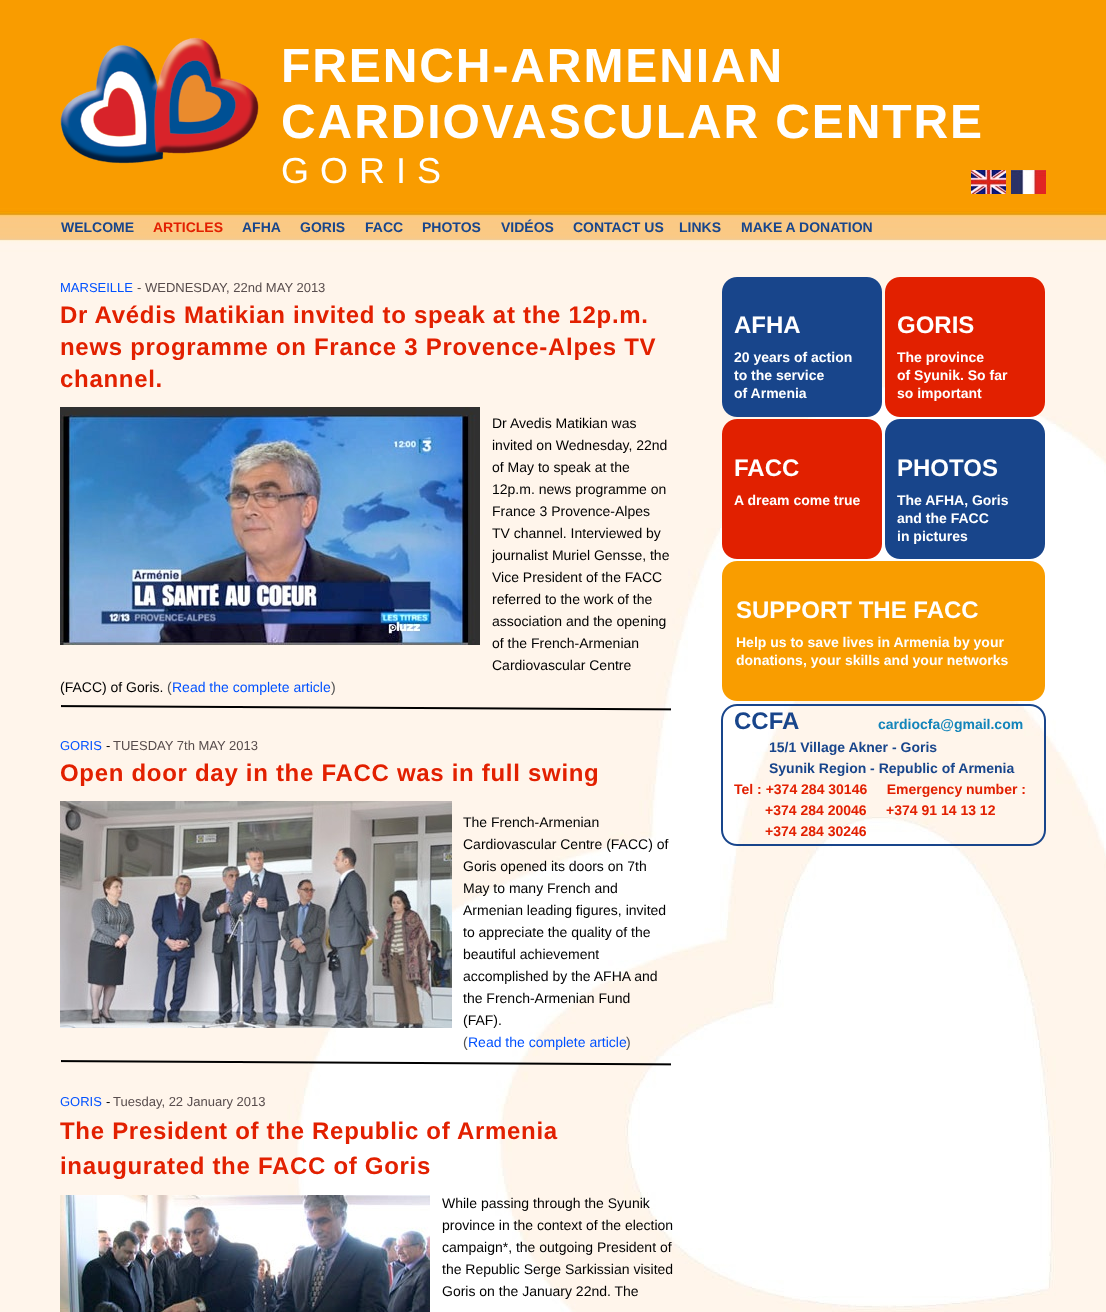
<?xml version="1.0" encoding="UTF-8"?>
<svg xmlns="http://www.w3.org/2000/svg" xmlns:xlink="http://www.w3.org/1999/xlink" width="1106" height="1312">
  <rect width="100%" height="100%" fill="#ffffff" />
  <image x="0" y="0" width="1106" height="1312" xlink:href="image1.png" />
  <image x="60" y="37" width="199" height="127" xlink:href="image2.png" />
  <image x="971" y="170" width="35" height="24" xlink:href="image3.png" />
  <image x="1011" y="170" width="35" height="24" xlink:href="image4.png" />
  <image x="60" y="407" width="420" height="238" xlink:href="image5.png" />
  <image x="61" y="705" width="610" height="6" xlink:href="image6.png" />
  <image x="60" y="801" width="392" height="227" xlink:href="image7.png" />
  <image x="61" y="1060" width="610" height="6" xlink:href="image8.png" />
  <image x="60" y="1195" width="370" height="117" xlink:href="image9.png" />
  <image x="722" y="277" width="160" height="140" xlink:href="image10.png" />
  <image x="885" y="277" width="160" height="140" xlink:href="image11.png" />
  <image x="722" y="419" width="160" height="140" xlink:href="image12.png" />
  <image x="885" y="419" width="160" height="140" xlink:href="image13.png" />
  <image x="722" y="561" width="323" height="140" xlink:href="image14.png" />
  <image x="721" y="704" width="325" height="142" xlink:href="image15.png" />
  <text x="281" y="82" style="font-family: Liberation Sans; font-size: 48px; font-weight: bold; letter-spacing: 1.9px; fill: #ffffff">FRENCH-ARMENIAN</text>
  <text x="281" y="138" style="font-family: Liberation Sans; font-size: 48px; font-weight: bold; letter-spacing: 1.9px; fill: #ffffff">CARDIOVASCULAR CENTRE</text>
  <text x="281" y="183" style="font-family: Liberation Sans; font-size: 36px; letter-spacing: 11px; fill: #ffffff">GORIS</text>
  <text x="61" y="232" style="font-family: Liberation Sans; font-size: 14px; font-weight: bold; fill: #18458b">WELCOME</text>
  <text x="153" y="232" style="font-family: Liberation Sans; font-size: 14px; font-weight: bold; fill: #e22000">ARTICLES</text>
  <text x="242" y="232" style="font-family: Liberation Sans; font-size: 14px; font-weight: bold; fill: #18458b">AFHA</text>
  <text x="300" y="232" style="font-family: Liberation Sans; font-size: 14px; font-weight: bold; fill: #18458b">GORIS</text>
  <text x="365" y="232" style="font-family: Liberation Sans; font-size: 14px; font-weight: bold; fill: #18458b">FACC</text>
  <text x="422" y="232" style="font-family: Liberation Sans; font-size: 14px; font-weight: bold; fill: #18458b">PHOTOS</text>
  <text x="501" y="232" style="font-family: Liberation Sans; font-size: 14px; font-weight: bold; fill: #18458b">VIDÉOS</text>
  <text x="573" y="232" style="font-family: Liberation Sans; font-size: 14px; font-weight: bold; fill: #18458b">CONTACT US</text>
  <text x="679" y="232" style="font-family: Liberation Sans; font-size: 14px; font-weight: bold; fill: #18458b">LINKS</text>
  <text x="741" y="232" style="font-family: Liberation Sans; font-size: 14px; font-weight: bold; fill: #18458b">MAKE A DONATION</text>
  <text x="60" y="292" style="font-family: Liberation Sans; font-size: 13px; fill: #0051ff">MARSEILLE</text>
  <text x="137" y="292" style="font-family: Liberation Sans; font-size: 13px; fill: #584d4d">- WEDNESDAY, 22nd MAY 2013</text>
  <text x="60" y="323" style="font-family: Liberation Sans; font-size: 24px; font-weight: bold; letter-spacing: 0.7px; fill: #e22000">Dr Avédis Matikian invited to speak at the 12p.m.</text>
  <text x="60" y="355" style="font-family: Liberation Sans; font-size: 24px; font-weight: bold; letter-spacing: 0.7px; fill: #e22000">news programme on France 3 Provence-Alpes TV</text>
  <text x="60" y="387" style="font-family: Liberation Sans; font-size: 24px; font-weight: bold; letter-spacing: 0.7px; fill: #e22000">channel.</text>
  <text x="492" y="428" style="font-family: Liberation Sans; font-size: 14px; fill: #000000">Dr Avedis Matikian was</text>
  <text x="492" y="450" style="font-family: Liberation Sans; font-size: 14px; fill: #000000">invited on Wednesday, 22nd</text>
  <text x="492" y="472" style="font-family: Liberation Sans; font-size: 14px; fill: #000000">of May to speak at the</text>
  <text x="492" y="494" style="font-family: Liberation Sans; font-size: 14px; fill: #000000">12p.m. news programme on</text>
  <text x="492" y="516" style="font-family: Liberation Sans; font-size: 14px; fill: #000000">France 3 Provence-Alpes</text>
  <text x="492" y="538" style="font-family: Liberation Sans; font-size: 14px; fill: #000000">TV channel. Interviewed by</text>
  <text x="492" y="560" style="font-family: Liberation Sans; font-size: 14px; fill: #000000">journalist Muriel Gensse, the</text>
  <text x="492" y="582" style="font-family: Liberation Sans; font-size: 14px; fill: #000000">Vice President of the FACC</text>
  <text x="492" y="604" style="font-family: Liberation Sans; font-size: 14px; fill: #000000">referred to the work of the</text>
  <text x="492" y="626" style="font-family: Liberation Sans; font-size: 14px; fill: #000000">association and the opening</text>
  <text x="492" y="648" style="font-family: Liberation Sans; font-size: 14px; fill: #000000">of the French-Armenian</text>
  <text x="492" y="670" style="font-family: Liberation Sans; font-size: 14px; fill: #000000">Cardiovascular Centre</text>
  <text x="60" y="692" style="font-family: Liberation Sans; font-size: 14px; fill: #000000">(FACC) of Goris.</text>
  <text x="167" y="692" style="font-family: Liberation Sans; font-size: 14px; fill: #515151">(</text>
  <text x="172" y="692" style="font-family: Liberation Sans; font-size: 14px; fill: #0051ff">Read the complete article</text>
  <text x="331" y="692" style="font-family: Liberation Sans; font-size: 14px; fill: #515151">)</text>
  <text x="60" y="750" style="font-family: Liberation Sans; font-size: 13px; fill: #0051ff">GORIS</text>
  <text x="106" y="750" style="font-family: Liberation Sans; font-size: 13px; fill: #000000">-</text>
  <text x="113" y="750" style="font-family: Liberation Sans; font-size: 13px; fill: #584d4d">TUESDAY 7th MAY 2013</text>
  <text x="60" y="781" style="font-family: Liberation Sans; font-size: 24px; font-weight: bold; letter-spacing: 0.7px; fill: #e22000">Open door day in the FACC was in full swing</text>
  <text x="463" y="827" style="font-family: Liberation Sans; font-size: 14px; fill: #000000">The French-Armenian</text>
  <text x="463" y="849" style="font-family: Liberation Sans; font-size: 14px; fill: #000000">Cardiovascular Centre (FACC) of</text>
  <text x="463" y="871" style="font-family: Liberation Sans; font-size: 14px; fill: #000000">Goris opened its doors on 7th</text>
  <text x="463" y="893" style="font-family: Liberation Sans; font-size: 14px; fill: #000000">May to many French and</text>
  <text x="463" y="915" style="font-family: Liberation Sans; font-size: 14px; fill: #000000">Armenian leading figures, invited</text>
  <text x="463" y="937" style="font-family: Liberation Sans; font-size: 14px; fill: #000000">to appreciate the quality of the</text>
  <text x="463" y="959" style="font-family: Liberation Sans; font-size: 14px; fill: #000000">beautiful achievement</text>
  <text x="463" y="981" style="font-family: Liberation Sans; font-size: 14px; fill: #000000">accomplished by the AFHA and</text>
  <text x="463" y="1003" style="font-family: Liberation Sans; font-size: 14px; fill: #000000">the French-Armenian Fund</text>
  <text x="463" y="1025" style="font-family: Liberation Sans; font-size: 14px; fill: #000000">(FAF).</text>
  <text x="463" y="1047" style="font-family: Liberation Sans; font-size: 14px; fill: #515151">(</text>
  <text x="468" y="1047" style="font-family: Liberation Sans; font-size: 14px; fill: #0051ff">Read the complete article</text>
  <text x="626" y="1047" style="font-family: Liberation Sans; font-size: 14px; fill: #515151">)</text>
  <text x="60" y="1106" style="font-family: Liberation Sans; font-size: 13px; fill: #0051ff">GORIS</text>
  <text x="106" y="1106" style="font-family: Liberation Sans; font-size: 13px; fill: #000000">-</text>
  <text x="113" y="1106" style="font-family: Liberation Sans; font-size: 13px; fill: #584d4d">Tuesday, 22 January 2013</text>
  <text x="60" y="1139" style="font-family: Liberation Sans; font-size: 24px; font-weight: bold; letter-spacing: 0.7px; fill: #e22000">The President of the Republic of Armenia</text>
  <text x="60" y="1174" style="font-family: Liberation Sans; font-size: 24px; font-weight: bold; letter-spacing: 0.7px; fill: #e22000">inaugurated the FACC of Goris</text>
  <text x="442" y="1208" style="font-family: Liberation Sans; font-size: 14px; fill: #000000">While passing through the Syunik</text>
  <text x="442" y="1230" style="font-family: Liberation Sans; font-size: 14px; fill: #000000">province in the context of the election</text>
  <text x="442" y="1252" style="font-family: Liberation Sans; font-size: 14px; fill: #000000">campaign*, the outgoing President of</text>
  <text x="442" y="1274" style="font-family: Liberation Sans; font-size: 14px; fill: #000000">the Republic Serge Sarkissian visited</text>
  <text x="442" y="1296" style="font-family: Liberation Sans; font-size: 14px; fill: #000000">Goris on the January 22nd. The</text>
  <text x="734" y="333" style="font-family: Liberation Sans; font-size: 24px; font-weight: bold; fill: #ffffff">AFHA</text>
  <text x="734" y="362" style="font-family: Liberation Sans; font-size: 14px; font-weight: bold; fill: #ffffff">20 years of action</text>
  <text x="734" y="380" style="font-family: Liberation Sans; font-size: 14px; font-weight: bold; fill: #ffffff">to the service</text>
  <text x="734" y="398" style="font-family: Liberation Sans; font-size: 14px; font-weight: bold; fill: #ffffff">of Armenia</text>
  <text x="897" y="333" style="font-family: Liberation Sans; font-size: 24px; font-weight: bold; fill: #ffffff">GORIS</text>
  <text x="897" y="362" style="font-family: Liberation Sans; font-size: 14px; font-weight: bold; fill: #ffffff">The province</text>
  <text x="897" y="380" style="font-family: Liberation Sans; font-size: 14px; font-weight: bold; fill: #ffffff">of Syunik. So far</text>
  <text x="897" y="398" style="font-family: Liberation Sans; font-size: 14px; font-weight: bold; fill: #ffffff">so important</text>
  <text x="734" y="476" style="font-family: Liberation Sans; font-size: 24px; font-weight: bold; fill: #ffffff">FACC</text>
  <text x="734" y="505" style="font-family: Liberation Sans; font-size: 14px; font-weight: bold; fill: #ffffff">A dream come true</text>
  <text x="897" y="476" style="font-family: Liberation Sans; font-size: 24px; font-weight: bold; fill: #ffffff">PHOTOS</text>
  <text x="897" y="505" style="font-family: Liberation Sans; font-size: 14px; font-weight: bold; fill: #ffffff">The AFHA, Goris</text>
  <text x="897" y="523" style="font-family: Liberation Sans; font-size: 14px; font-weight: bold; fill: #ffffff">and the FACC</text>
  <text x="897" y="541" style="font-family: Liberation Sans; font-size: 14px; font-weight: bold; fill: #ffffff">in pictures</text>
  <text x="736" y="618" style="font-family: Liberation Sans; font-size: 24px; font-weight: bold; fill: #ffffff">SUPPORT THE FACC</text>
  <text x="736" y="647" style="font-family: Liberation Sans; font-size: 14px; font-weight: bold; fill: #ffffff">Help us to save lives in Armenia by your</text>
  <text x="736" y="665" style="font-family: Liberation Sans; font-size: 14px; font-weight: bold; fill: #ffffff">donations, your skills and your networks</text>
  <text x="734" y="729" style="font-family: Liberation Sans; font-size: 24px; font-weight: bold; fill: #18458b">CCFA</text>
  <text x="878" y="729" style="font-family: Liberation Sans; font-size: 14px; font-weight: bold; fill: #1284ba">cardiocfa@gmail.com</text>
  <text x="769" y="752" style="font-family: Liberation Sans; font-size: 14px; font-weight: bold; fill: #18458b">15/1 Village Akner - Goris</text>
  <text x="769" y="773" style="font-family: Liberation Sans; font-size: 14px; font-weight: bold; fill: #18458b">Syunik Region - Republic of Armenia</text>
  <text x="734" y="794" style="font-family: Liberation Sans; font-size: 14px; font-weight: bold; fill: #e22000" xml:space="preserve">Tel : +374 284 30146     Emergency number :</text>
  <text x="765" y="815" style="font-family: Liberation Sans; font-size: 14px; font-weight: bold; fill: #e22000" xml:space="preserve">+374 284 20046     +374 91 14 13 12</text>
  <text x="765" y="836" style="font-family: Liberation Sans; font-size: 14px; font-weight: bold; fill: #e22000">+374 284 30246</text>
</svg>
